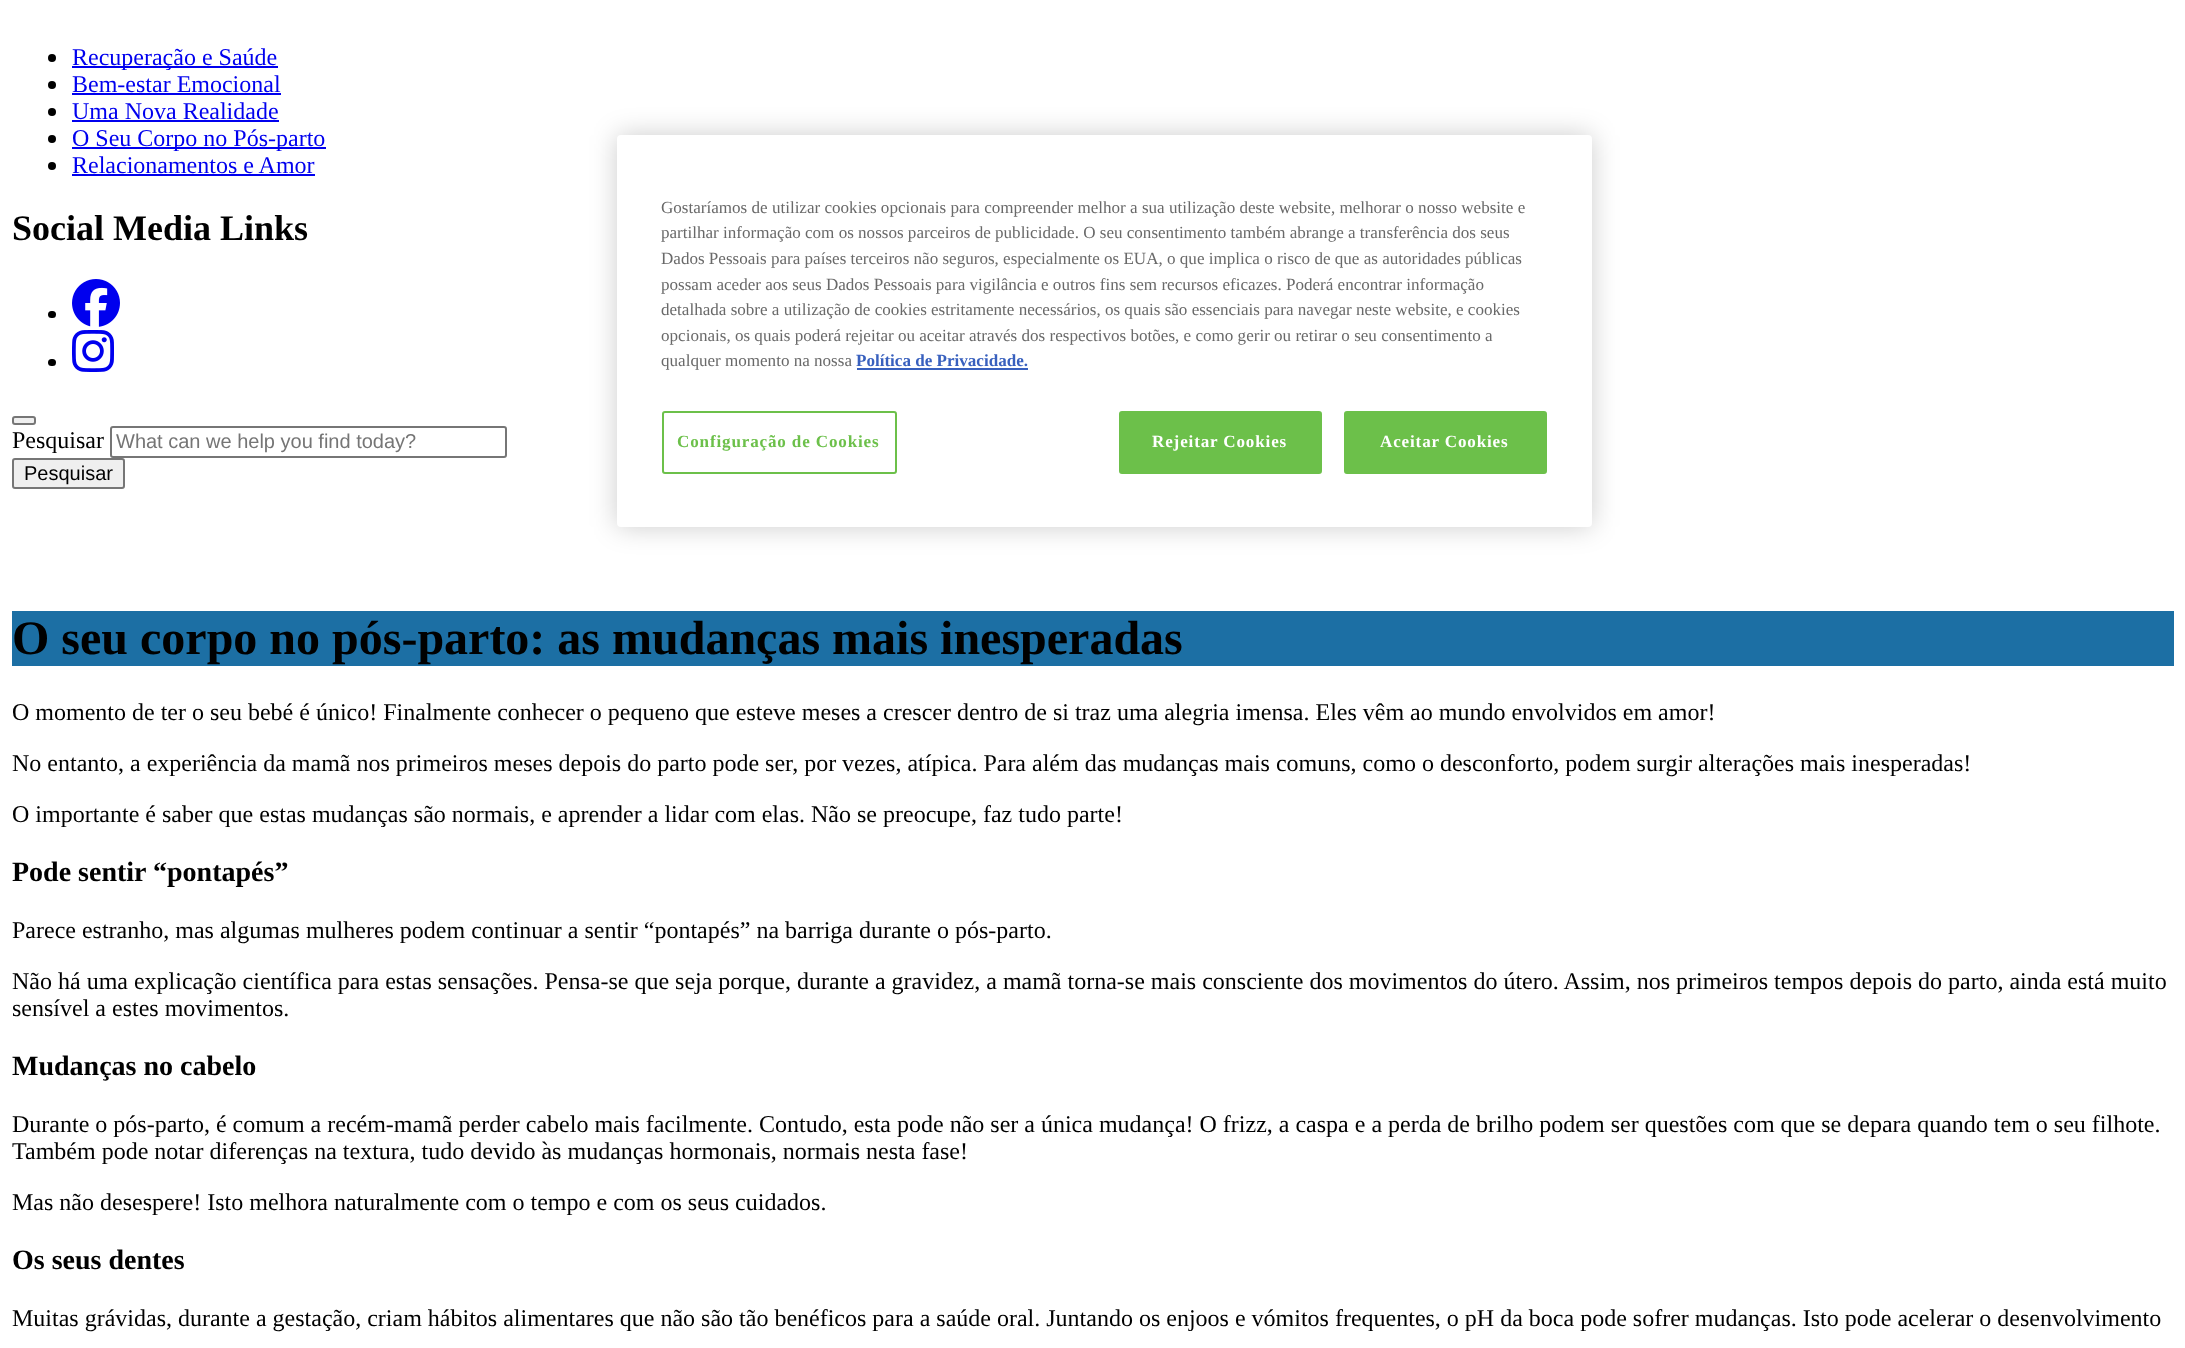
<?xml version="1.0" encoding="UTF-8"?>
<svg xmlns="http://www.w3.org/2000/svg" xmlns:xlink="http://www.w3.org/1999/xlink" width="2185" height="1348">
  <rect width="100%" height="100%" fill="#ffffff" />
  <circle cx="52" cy="58" r="4" fill="#000000" />
  <rect x="72" y="66" width="206" height="2" fill="#0000ee" />
  <circle cx="52" cy="85" r="4" fill="#000000" />
  <rect x="72" y="93" width="209" height="2" fill="#0000ee" />
  <circle cx="52" cy="112" r="4" fill="#000000" />
  <rect x="72" y="120" width="207" height="2" fill="#0000ee" />
  <circle cx="52" cy="139" r="4" fill="#000000" />
  <rect x="72" y="147" width="254" height="2" fill="#0000ee" />
  <circle cx="52" cy="166" r="4" fill="#000000" />
  <rect x="72" y="174" width="243" height="2" fill="#0000ee" />
  <rect x="48" y="311" width="8" height="7" rx="3.5" fill="#000000" />
  <image x="72" y="279" width="48" height="48" xlink:href="image1.png" />
  <rect x="48" y="359" width="8" height="7" rx="3.5" fill="#000000" />
  <image x="72" y="330" width="42" height="42" xlink:href="image2.png" />
  <rect x="13" y="417" width="22" height="7" rx="2" fill="#efefef" stroke="#767676" stroke-width="2" />
  <rect x="111" y="427" width="395" height="30" rx="2" fill="none" stroke="#767676" stroke-width="2" />
  <rect x="13" y="459" width="111" height="29" rx="2" fill="#efefef" stroke="#767676" stroke-width="2" />
  <rect x="12" y="611" width="2162" height="55" fill="#1c6fa4" />
  <rect x="617" y="135" width="975" height="392" rx="4" fill="#000000" fill-opacity="0.2" filter="blur(13.5px)" />
  <rect x="617" y="135" width="975" height="392" rx="4" fill="#ffffff" />
  <rect x="857" y="368" width="171" height="2" fill="#3860be" />
  <rect x="663" y="412" width="233" height="61" rx="2" fill="none" stroke="#6cc04a" stroke-width="2" />
  <rect x="1120" y="412" width="201" height="61" rx="2" fill="#6cc04a" stroke="#6cc04a" stroke-width="2" />
  <rect x="1345" y="412" width="201" height="61" rx="2" fill="#6cc04a" stroke="#6cc04a" stroke-width="2" />
  <text x="72" y="65" style="font-family: Liberation Serif; font-size: 24px; fill: #0000ee">Recuperação e Saúde</text>
  <text x="72" y="92" style="font-family: Liberation Serif; font-size: 24px; fill: #0000ee">Bem-estar Emocional</text>
  <text x="72" y="119" style="font-family: Liberation Serif; font-size: 24px; fill: #0000ee">Uma Nova Realidade</text>
  <text x="72" y="146" style="font-family: Liberation Serif; font-size: 24px; fill: #0000ee">O Seu Corpo no Pós-parto</text>
  <text x="72" y="173" style="font-family: Liberation Serif; font-size: 24px; fill: #0000ee">Relacionamentos e Amor</text>
  <text x="12" y="240" style="font-family: Liberation Serif; font-size: 36px; font-weight: bold; fill: #000000">Social Media Links</text>
  <text x="12" y="448" style="font-family: Liberation Serif; font-size: 24px; fill: #000000">Pesquisar</text>
  <text x="116" y="448" style="font-family: Liberation Sans; font-size: 20px; fill: #757575">What can we help you find today?</text>
  <text x="24" y="480" style="font-family: Liberation Sans; font-size: 20px; fill: #000000">Pesquisar</text>
  <text x="12" y="654" style="font-family: Liberation Serif; font-size: 48px; font-weight: bold; fill: #000000">O seu corpo no pós-parto: as mudanças mais inesperadas</text>
  <text x="12" y="720" style="font-family: Liberation Serif; font-size: 24px; fill: #000000">O momento de ter o seu bebé é único! Finalmente conhecer o pequeno que esteve meses a crescer dentro de si traz uma alegria imensa. Eles vêm ao mundo envolvidos em amor!</text>
  <text x="12" y="771" style="font-family: Liberation Serif; font-size: 24px; fill: #000000">No entanto, a experiência da mamã nos primeiros meses depois do parto pode ser, por vezes, atípica. Para além das mudanças mais comuns, como o desconforto, podem surgir alterações mais inesperadas!</text>
  <text x="12" y="822" style="font-family: Liberation Serif; font-size: 24px; fill: #000000">O importante é saber que estas mudanças são normais, e aprender a lidar com elas. Não se preocupe, faz tudo parte!</text>
  <text x="12" y="881" style="font-family: Liberation Serif; font-size: 28px; font-weight: bold; fill: #000000">Pode sentir “pontapés”</text>
  <text x="12" y="938" style="font-family: Liberation Serif; font-size: 24px; fill: #000000">Parece estranho, mas algumas mulheres podem continuar a sentir “pontapés” na barriga durante o pós-parto.</text>
  <text x="12" y="989" style="font-family: Liberation Serif; font-size: 24px; fill: #000000">Não há uma explicação científica para estas sensações. Pensa-se que seja porque, durante a gravidez, a mamã torna-se mais consciente dos movimentos do útero. Assim, nos primeiros tempos depois do parto, ainda está muito</text>
  <text x="12" y="1016" style="font-family: Liberation Serif; font-size: 24px; fill: #000000">sensível a estes movimentos.</text>
  <text x="12" y="1075" style="font-family: Liberation Serif; font-size: 28px; font-weight: bold; fill: #000000">Mudanças no cabelo</text>
  <text x="12" y="1132" style="font-family: Liberation Serif; font-size: 24px; fill: #000000">Durante o pós-parto, é comum a recém-mamã perder cabelo mais facilmente. Contudo, esta pode não ser a única mudança! O frizz, a caspa e a perda de brilho podem ser questões com que se depara quando tem o seu filhote.</text>
  <text x="12" y="1159" style="font-family: Liberation Serif; font-size: 24px; fill: #000000">Também pode notar diferenças na textura, tudo devido às mudanças hormonais, normais nesta fase!</text>
  <text x="12" y="1210" style="font-family: Liberation Serif; font-size: 24px; fill: #000000">Mas não desespere! Isto melhora naturalmente com o tempo e com os seus cuidados.</text>
  <text x="12" y="1269" style="font-family: Liberation Serif; font-size: 28px; font-weight: bold; fill: #000000">Os seus dentes</text>
  <text x="12" y="1326" style="font-family: Liberation Serif; font-size: 24px; fill: #000000">Muitas grávidas, durante a gestação, criam hábitos alimentares que não são tão benéficos para a saúde oral. Juntando os enjoos e vómitos frequentes, o pH da boca pode sofrer mudanças. Isto pode acelerar o desenvolvimento</text>
  <text x="661" y="213" style="font-family: Liberation Serif; font-size: 17.07px; fill: #696969">Gostaríamos de utilizar cookies opcionais para compreender melhor a sua utilização deste website, melhorar o nosso website e</text>
  <text x="661" y="238" style="font-family: Liberation Serif; font-size: 17.07px; fill: #696969">partilhar informação com os nossos parceiros de publicidade. O seu consentimento também abrange a transferência dos seus</text>
  <text x="661" y="264" style="font-family: Liberation Serif; font-size: 17.07px; fill: #696969">Dados Pessoais para países terceiros não seguros, especialmente os EUA, o que implica o risco de que as autoridades públicas</text>
  <text x="661" y="290" style="font-family: Liberation Serif; font-size: 17.07px; fill: #696969">possam aceder aos seus Dados Pessoais para vigilância e outros fins sem recursos eficazes. Poderá encontrar informação</text>
  <text x="661" y="315" style="font-family: Liberation Serif; font-size: 17.07px; fill: #696969">detalhada sobre a utilização de cookies estritamente necessários, os quais são essenciais para navegar neste website, e cookies</text>
  <text x="661" y="341" style="font-family: Liberation Serif; font-size: 17.07px; fill: #696969">opcionais, os quais poderá rejeitar ou aceitar através dos respectivos botões, e como gerir ou retirar o seu consentimento a</text>
  <text x="661" y="366" style="font-family: Liberation Serif; font-size: 17.07px; fill: #696969">qualquer momento na nossa</text>
  <text x="856" y="366" style="font-family: Liberation Serif; font-size: 17.07px; font-weight: bold; fill: #3860be">Política de Privacidade.</text>
  <text x="677" y="447" style="font-family: Liberation Serif; font-size: 17.07px; font-weight: bold; letter-spacing: 0.85px; fill: #6cc04a">Configuração de Cookies</text>
  <text x="1152" y="447" style="font-family: Liberation Serif; font-size: 17.07px; font-weight: bold; letter-spacing: 0.85px; fill: #ffffff">Rejeitar Cookies</text>
  <text x="1380" y="447" style="font-family: Liberation Serif; font-size: 17.07px; font-weight: bold; letter-spacing: 0.85px; fill: #ffffff">Aceitar Cookies</text>
</svg>
